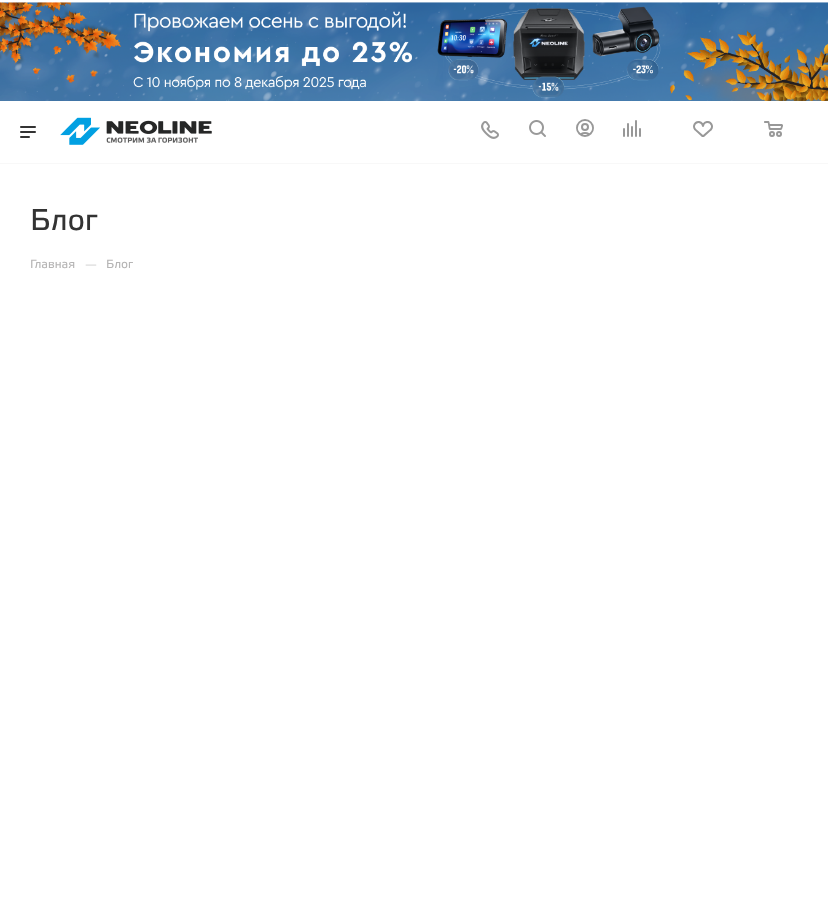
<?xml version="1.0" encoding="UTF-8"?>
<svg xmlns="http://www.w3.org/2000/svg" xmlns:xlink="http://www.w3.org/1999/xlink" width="828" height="910">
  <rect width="100%" height="100%" fill="#ffffff" />
  <image x="0" y="2" width="828" height="99" xlink:href="image1.png" />
  <rect y="163" width="828" height="1" fill="#f8f8f8" />
  <image x="20" y="126" width="16" height="12" xlink:href="image2.png" />
  <image x="60" y="117" width="152" height="28" xlink:href="image3.png" />
  <image x="481" y="121" width="18" height="18" xlink:href="image4.png" />
  <image x="529" y="120" width="17" height="17" xlink:href="image5.png" />
  <image x="576" y="119" width="18" height="18" xlink:href="image6.png" />
  <image x="623" y="120" width="18" height="17" xlink:href="image7.png" />
  <image x="693" y="121" width="20" height="16" xlink:href="image8.png" />
  <image x="764" y="121" width="19" height="16" xlink:href="image9.png" />
  <text x="30" y="230" style="font-family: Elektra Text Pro; font-size: 30px; fill: #333333">Блог</text>
  <text x="30" y="268" style="font-family: Elektra Text Pro; font-size: 12px; fill: #b6b5b5">Главная</text>
  <text x="85" y="269" style="font-family: Elektra Text Pro; font-size: 14px; fill: #dddddd">—</text>
  <text x="106" y="268" style="font-family: Elektra Text Pro; font-size: 12px; fill: #b6b5b5">Блог</text>
</svg>
